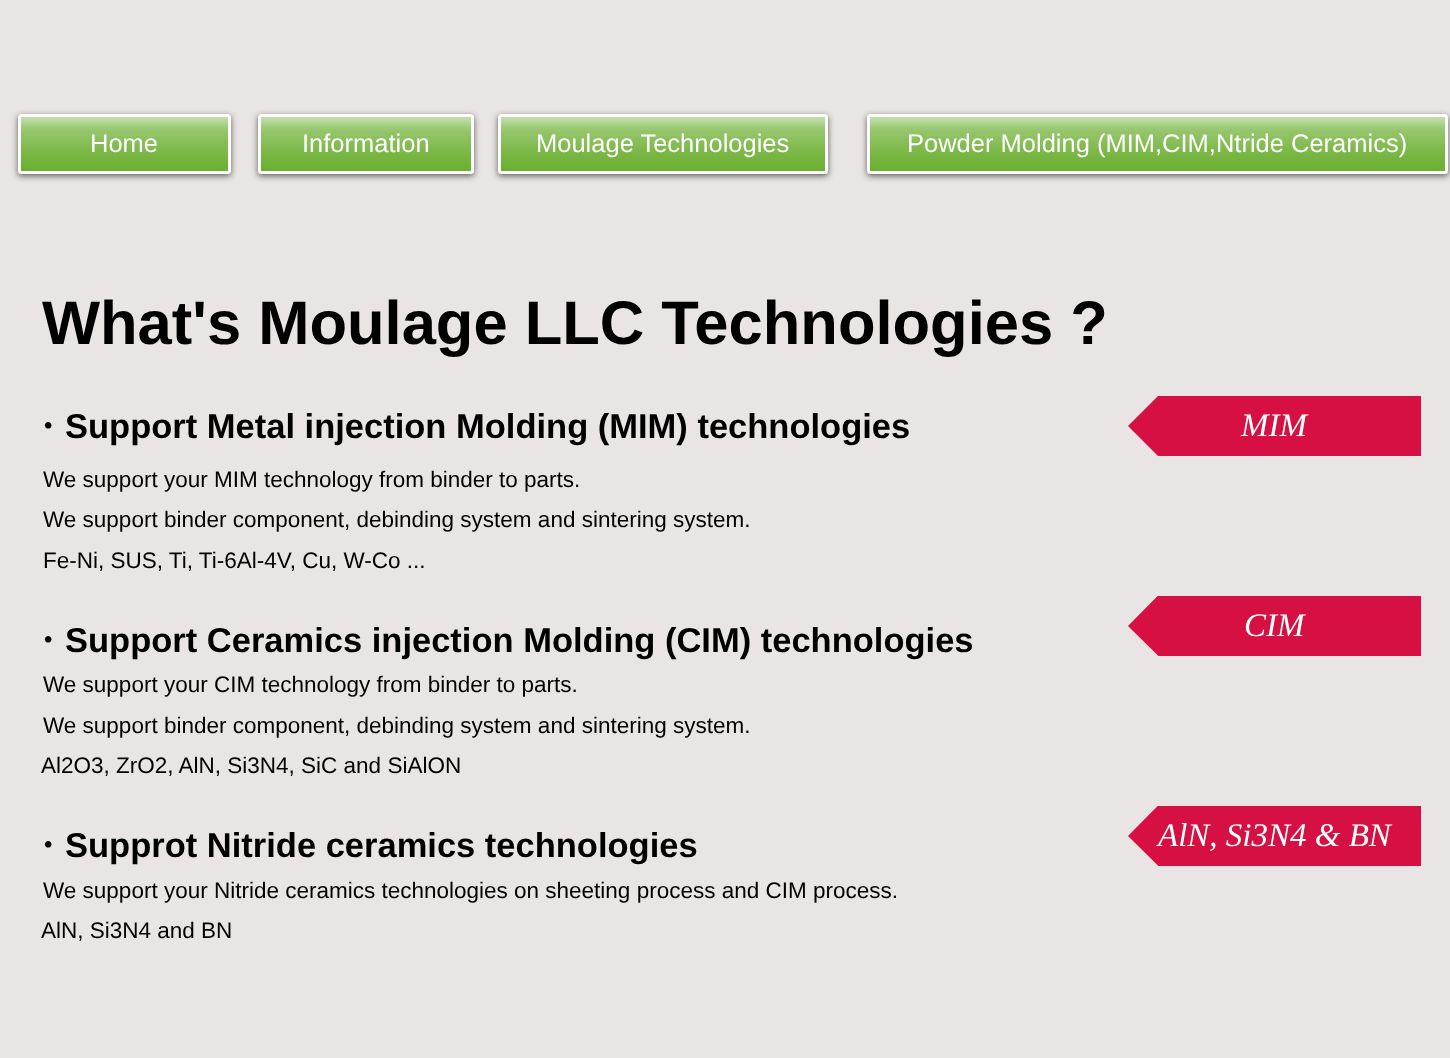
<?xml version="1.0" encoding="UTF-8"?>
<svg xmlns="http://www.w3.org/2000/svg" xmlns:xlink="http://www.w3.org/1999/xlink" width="1450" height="1058">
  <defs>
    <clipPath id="clip1"><rect x="1128" y="396" width="293" height="60" /></clipPath>
    <clipPath id="clip2"><rect x="1128" y="596" width="293" height="60" /></clipPath>
    <clipPath id="clip3"><rect x="1128" y="806" width="293" height="60" /></clipPath>
  </defs>
  <rect width="100%" height="100%" fill="#eae5e5" />
  <rect x="18" y="116" width="213" height="60" rx="3" fill="#000000" fill-opacity="0.6" filter="blur(3px)" />
  <rect x="18" y="114" width="213" height="60" rx="3" fill="#62aa23" />
  <image x="18" y="117" width="213" height="57" xlink:href="image1.png" />
  <rect x="19.5" y="115.5" width="210" height="57" rx="1.5" fill="none" stroke="#ffffff" stroke-width="3" />
  <rect x="258" y="116" width="216" height="60" rx="3" fill="#000000" fill-opacity="0.6" filter="blur(3px)" />
  <rect x="258" y="114" width="216" height="60" rx="3" fill="#62aa23" />
  <image x="258" y="117" width="216" height="57" xlink:href="image2.png" />
  <rect x="259.5" y="115.5" width="213" height="57" rx="1.5" fill="none" stroke="#ffffff" stroke-width="3" />
  <rect x="498" y="116" width="330" height="60" rx="3" fill="#000000" fill-opacity="0.6" filter="blur(3px)" />
  <rect x="498" y="114" width="330" height="60" rx="3" fill="#62aa23" />
  <image x="498" y="117" width="330" height="57" xlink:href="image3.png" />
  <rect x="499.5" y="115.5" width="327" height="57" rx="1.5" fill="none" stroke="#ffffff" stroke-width="3" />
  <rect x="867" y="116" width="581" height="60" rx="3" fill="#000000" fill-opacity="0.6" filter="blur(3px)" />
  <rect x="867" y="114" width="581" height="60" rx="3" fill="#62aa23" />
  <image x="867" y="117" width="579" height="57" xlink:href="image4.png" />
  <rect x="868.5" y="115.5" width="578" height="57" rx="1.5" fill="none" stroke="#ffffff" stroke-width="3" />
  <g clip-path="url(#clip1)">
    <path d="M 1203 426 h -75 l 75 -75 z" fill="#d61043" />
  </g>
  <rect x="1203" y="396" width="218" height="60" fill="#d61043" />
  <g clip-path="url(#clip1)">
    <path d="M 1128 426 h 75 v 75 z" fill="#d61043" />
  </g>
  <g clip-path="url(#clip2)">
    <path d="M 1203 626 h -75 l 75 -76 z" fill="#d61043" />
  </g>
  <rect x="1203" y="596" width="218" height="60" fill="#d61043" />
  <g clip-path="url(#clip2)">
    <path d="M 1128 626 h 75 v 74 z" fill="#d61043" />
  </g>
  <g clip-path="url(#clip3)">
    <path d="M 1203 836 h -75 l 75 -76 z" fill="#d61043" />
  </g>
  <rect x="1203" y="806" width="218" height="60" fill="#d61043" />
  <g clip-path="url(#clip3)">
    <path d="M 1128 836 h 75 v 74 z" fill="#d61043" />
  </g>
  <text x="90" y="152" style="font-family: Liberation Sans; font-size: 25.5px; fill: #ffffff">Home</text>
  <text x="302" y="152" style="font-family: Liberation Sans; font-size: 25.5px; fill: #ffffff">Information</text>
  <text x="536" y="152" style="font-family: Liberation Sans; font-size: 25.5px; fill: #ffffff">Moulage Technologies</text>
  <text x="907" y="152" style="font-family: Liberation Sans; font-size: 25.5px; fill: #ffffff">Powder Molding (MIM,CIM,Ntride Ceramics)</text>
  <text x="42" y="344" style="font-family: Liberation Sans; font-size: 61.5px; font-weight: bold; fill: #000000">What's Moulage LLC Technologies ?</text>
  <text x="30" y="438" style="font-family: WenQuanYi Zen Hei; font-size: 34.5px; font-weight: bold; fill: #000000">・</text>
  <text x="65" y="438" style="font-family: Liberation Sans; font-size: 34.5px; font-weight: bold; fill: #000000">Support Metal injection Molding (MIM) technologies</text>
  <text x="43" y="487" style="font-family: Liberation Sans; font-size: 22.5px; fill: #000000">We support your MIM technology from binder to parts.</text>
  <text x="43" y="527" style="font-family: Liberation Sans; font-size: 22.5px; fill: #000000">We support binder component, debinding system and sintering system.</text>
  <text x="43" y="568" style="font-family: Liberation Sans; font-size: 22.5px; fill: #000000">Fe-Ni, SUS, Ti, Ti-6Al-4V, Cu, W-Co ...</text>
  <text x="30" y="652" style="font-family: WenQuanYi Zen Hei; font-size: 34.5px; font-weight: bold; fill: #000000">・</text>
  <text x="65" y="652" style="font-family: Liberation Sans; font-size: 34.5px; font-weight: bold; fill: #000000">Support Ceramics injection Molding (CIM) technologies</text>
  <text x="43" y="692" style="font-family: Liberation Sans; font-size: 22.5px; fill: #000000">We support your CIM technology from binder to parts.</text>
  <text x="43" y="733" style="font-family: Liberation Sans; font-size: 22.5px; fill: #000000">We support binder component, debinding system and sintering system.</text>
  <text x="41" y="773" style="font-family: Liberation Sans; font-size: 22.5px; fill: #000000">Al2O3, ZrO2, AlN, Si3N4, SiC and SiAlON</text>
  <text x="30" y="857" style="font-family: WenQuanYi Zen Hei; font-size: 34.5px; font-weight: bold; fill: #000000">・</text>
  <text x="65" y="857" style="font-family: Liberation Sans; font-size: 34.5px; font-weight: bold; fill: #000000">Supprot Nitride ceramics technologies</text>
  <text x="43" y="898" style="font-family: Liberation Sans; font-size: 22.5px; fill: #000000">We support your Nitride ceramics technologies on sheeting process and CIM process.</text>
  <text x="41" y="938" style="font-family: Liberation Sans; font-size: 22.5px; fill: #000000">AlN, Si3N4 and BN</text>
  <text x="1241" y="436" style="font-family: Liberation Serif; font-size: 33px; font-style: italic; fill: #ffffff">MIM</text>
  <text x="1244" y="636" style="font-family: Liberation Serif; font-size: 33px; font-style: italic; fill: #ffffff">CIM</text>
  <text x="1158" y="846" style="font-family: Liberation Serif; font-size: 33px; font-style: italic; fill: #ffffff">AlN, Si3N4 &amp; BN</text>
</svg>
